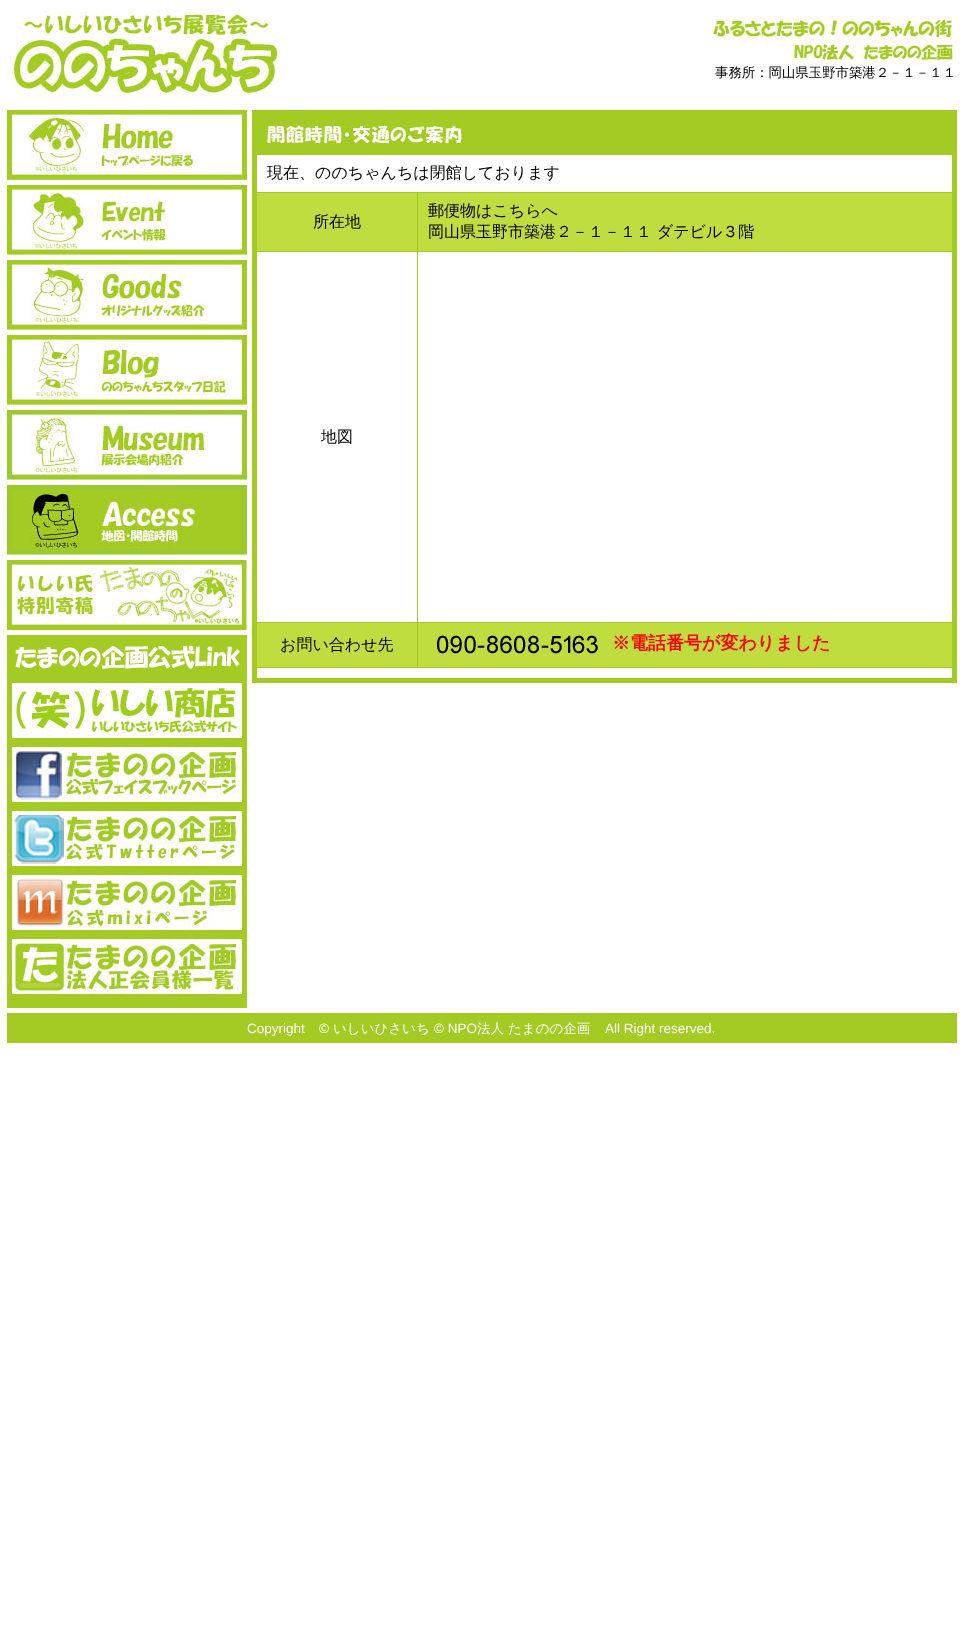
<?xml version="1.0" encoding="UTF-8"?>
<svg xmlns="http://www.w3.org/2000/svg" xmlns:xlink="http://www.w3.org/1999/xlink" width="963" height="1650">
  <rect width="100%" height="100%" fill="#ffffff" />
  <image x="7" y="10" width="272" height="83" xlink:href="image1.png" />
  <image x="713" y="18" width="240" height="48" xlink:href="image2.png" />
  <image x="7" y="110" width="240" height="70" xlink:href="image3.png" />
  <image x="7" y="185" width="240" height="70" xlink:href="image4.png" />
  <image x="7" y="260" width="240" height="70" xlink:href="image5.png" />
  <image x="7" y="335" width="240" height="70" xlink:href="image6.png" />
  <image x="7" y="410" width="240" height="70" xlink:href="image7.png" />
  <image x="7" y="485" width="240" height="70" xlink:href="image8.png" />
  <image x="7" y="560" width="240" height="70" xlink:href="image9.png" />
  <rect x="7" y="635" width="240" height="373" fill="#a3cb23" />
  <image x="15" y="645" width="225" height="24" xlink:href="image10.png" />
  <image x="12" y="683" width="230" height="55" xlink:href="image11.png" />
  <image x="12" y="747" width="230" height="55" xlink:href="image12.png" />
  <image x="12" y="811" width="230" height="55" xlink:href="image13.png" />
  <image x="12" y="875" width="230" height="55" xlink:href="image14.png" />
  <image x="12" y="939" width="230" height="55" xlink:href="image15.png" />
  <rect x="254.5" y="112.5" width="700" height="568" fill="none" stroke="#a3cb23" stroke-width="5" />
  <rect x="257" y="115" width="695" height="40" fill="#a3cb23" />
  <image x="267" y="125" width="195" height="19" xlink:href="image16.png" />
  <rect x="257" y="193" width="695" height="58" fill="#bfdd3e" />
  <rect x="257" y="623" width="695" height="44" fill="#bfdd3e" />
  <rect x="417" y="667" width="535" height="1" fill="#a3cb23" />
  <rect x="417" y="622" width="1" height="46" fill="#a3cb23" />
  <rect x="417" y="622" width="535" height="1" fill="#a3cb23" />
  <rect x="417" y="251" width="1" height="372" fill="#a3cb23" />
  <rect x="417" y="251" width="535" height="1" fill="#a3cb23" />
  <rect x="417" y="192" width="1" height="60" fill="#a3cb23" />
  <rect x="256" y="192" width="696" height="1" fill="#a3cb23" />
  <rect x="256" y="251" width="162" height="1" fill="#a3cb23" />
  <rect x="256" y="622" width="162" height="1" fill="#a3cb23" />
  <rect x="256" y="667" width="162" height="1" fill="#a3cb23" />
  <image x="437" y="635" width="161" height="19" xlink:href="image17.png" />
  <rect x="7" y="1013" width="950" height="30" fill="#a3cb23" />
  <text x="715" y="77" style="font-family: WenQuanYi Zen Hei; font-size: 13.4px; font-weight: 500; fill: #000000">事務所：岡山県玉野市築港２－１－１１</text>
  <text x="267" y="178" style="font-family: WenQuanYi Zen Hei; font-size: 16px; font-weight: 500; fill: #000000">現在、ののちゃんちは閉館しております</text>
  <text x="313" y="227" style="font-family: WenQuanYi Zen Hei; font-size: 16px; font-weight: 500; fill: #000000">所在地</text>
  <text x="428" y="216" style="font-family: WenQuanYi Zen Hei; font-size: 16px; font-weight: 500; fill: #000000">郵便物はこちらへ</text>
  <text x="428" y="237" style="font-family: WenQuanYi Zen Hei; font-size: 16px; font-weight: 500; fill: #000000">岡山県玉野市築港２－１－１１ ダテビル３階</text>
  <text x="321" y="442" style="font-family: WenQuanYi Zen Hei; font-size: 16px; font-weight: 500; fill: #000000">地図</text>
  <text x="280" y="650" style="font-family: WenQuanYi Zen Hei; font-size: 16px; font-weight: 500; fill: #000000">お問い合わせ先</text>
  <text x="612" y="649" style="font-family: WenQuanYi Zen Hei; font-size: 18px; font-weight: bold; fill: #ff0000">※電話番号が変わりました</text>
  <text x="247" y="1033" style="font-family: Liberation Sans; font-size: 13.5px; fill: #ffffff">Copyright</text>
  <text x="319" y="1033" style="font-family: Liberation Sans; font-size: 13.5px; fill: #ffffff">©</text>
  <text x="333" y="1033" style="font-family: WenQuanYi Zen Hei; font-size: 13.5px; font-weight: 500; fill: #ffffff">いしいひさいち</text>
  <text x="434" y="1033" style="font-family: Liberation Sans; font-size: 13.5px; fill: #ffffff">© NPO</text>
  <text x="477" y="1033" style="font-family: WenQuanYi Zen Hei; font-size: 13.5px; font-weight: 500; fill: #ffffff">法人 たまのの企画</text>
  <text x="605" y="1033" style="font-family: Liberation Sans; font-size: 13.5px; fill: #ffffff">All Right reserved.</text>
</svg>
